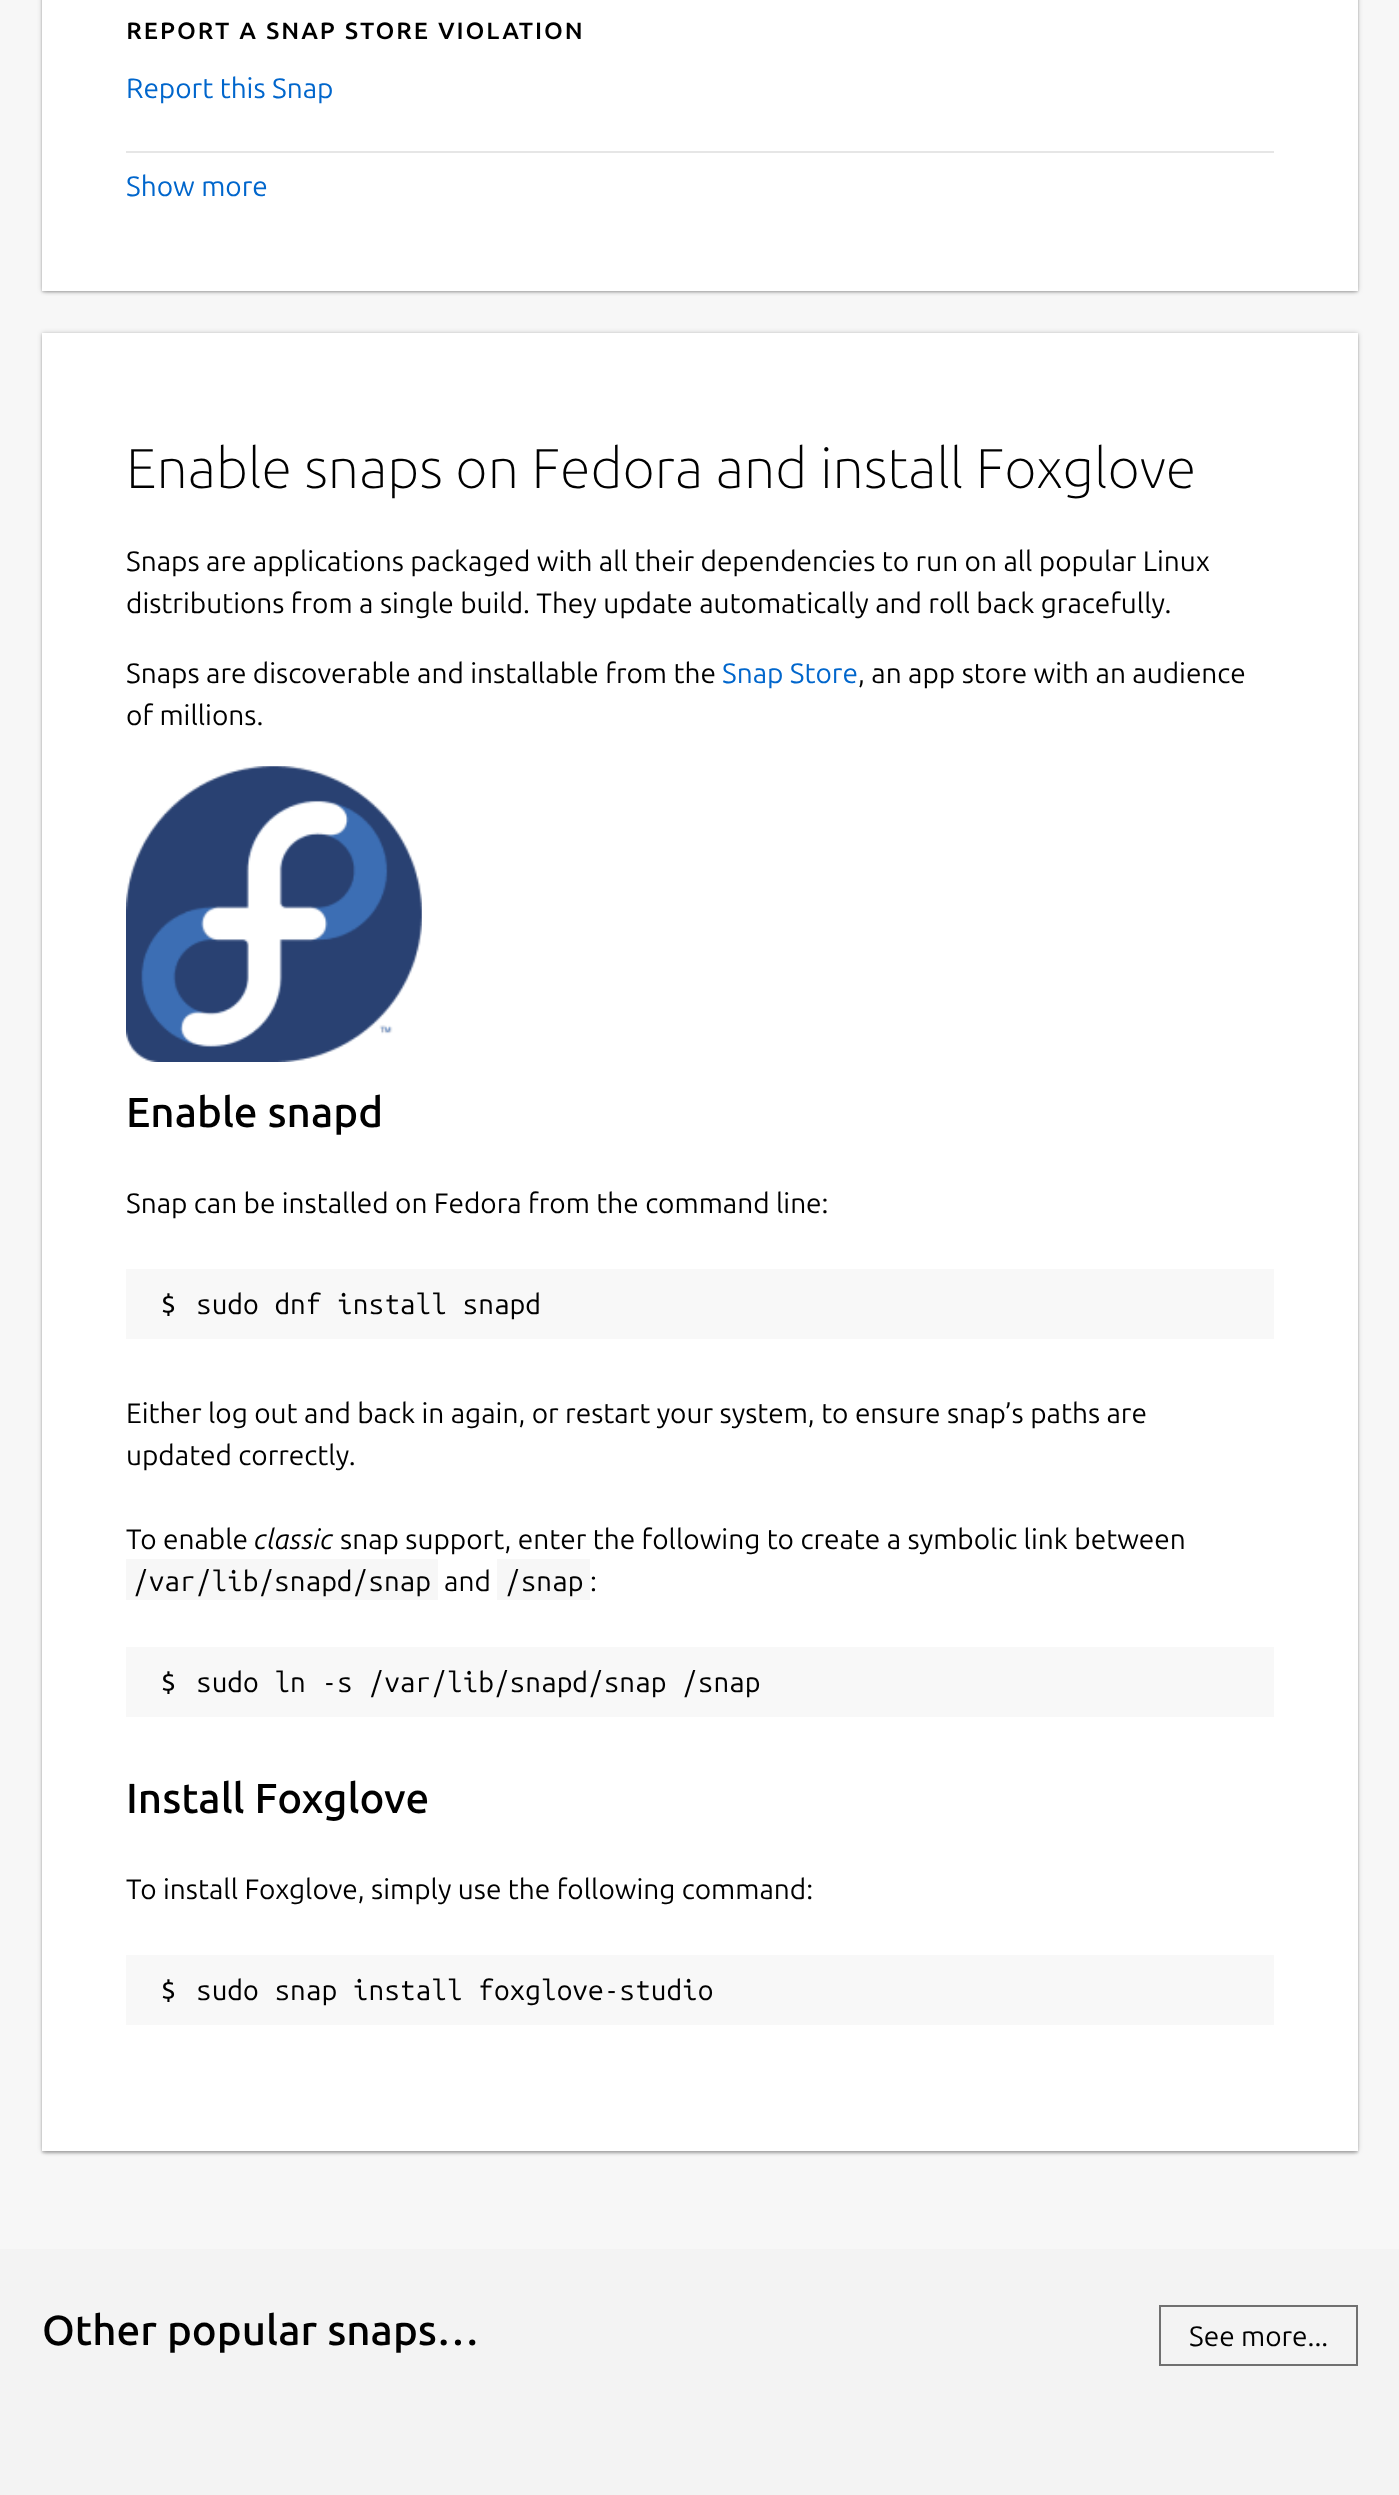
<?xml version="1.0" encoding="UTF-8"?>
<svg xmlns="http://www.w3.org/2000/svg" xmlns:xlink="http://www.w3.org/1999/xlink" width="1399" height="2495">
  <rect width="100%" height="100%" fill="#f3f3f3" />
  <rect width="1399" height="2249" fill="#f7f7f7" />
  <rect x="42" y="-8" width="1316" height="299" fill="#000000" fill-opacity="0.2" filter="blur(2.5px)" />
  <rect x="44" y="-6" width="1312" height="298" fill="#000000" fill-opacity="0.15" filter="blur(2px)" />
  <rect x="42" y="-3" width="1316" height="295" fill="#000000" fill-opacity="0.15" filter="blur(1px)" />
  <rect x="42" width="1316" height="291" fill="#ffffff" />
  <rect x="126" y="151" width="1148" height="2" fill="#e6e6e6" />
  <rect x="42" y="333" width="1316" height="1818" fill="#000000" fill-opacity="0.2" filter="blur(2.5px)" />
  <rect x="44" y="338" width="1312" height="1815" fill="#000000" fill-opacity="0.15" filter="blur(2px)" />
  <rect x="42" y="334" width="1316" height="1819" fill="#000000" fill-opacity="0.15" filter="blur(1px)" />
  <rect x="42" y="333" width="1316" height="1818" fill="#ffffff" />
  <image x="126" y="766" width="296" height="296" xlink:href="image1.png" />
  <rect x="126" y="1269" width="1148" height="70" fill="#f8f8f8" />
  <image x="162" y="1293" width="13" height="23" xlink:href="image2.png" />
  <rect x="126" y="1559" width="312" height="41" fill="#f7f7f7" />
  <rect x="497" y="1559" width="93" height="41" fill="#f7f7f7" />
  <rect x="126" y="1647" width="1148" height="70" fill="#f8f8f8" />
  <image x="162" y="1671" width="13" height="23" xlink:href="image2.png" />
  <rect x="126" y="1955" width="1148" height="70" fill="#f8f8f8" />
  <image x="162" y="1979" width="13" height="23" xlink:href="image2.png" />
  <rect x="1160" y="2306" width="197" height="59" fill="none" stroke="#707070" stroke-width="2" />
  <text x="126" y="39" style="font-family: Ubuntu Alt; font-size: 28px; font-weight: 500; letter-spacing: 1.4px; fill: #000000">Report a Snap Store violation</text>
  <text x="126" y="98" style="font-family: Ubuntu; font-size: 28px; fill: #0066cc">Report this Snap</text>
  <text x="126" y="196" style="font-family: Ubuntu; font-size: 28px; fill: #0066cc">Show more</text>
  <text x="126" y="488" style="font-family: Ubuntu; font-size: 56px; font-weight: 200; fill: #000000">Enable snaps on Fedora and install Foxglove</text>
  <text x="126" y="571" style="font-family: Ubuntu; font-size: 28px; fill: #000000">Snaps are applications packaged with all their dependencies to run on all popular Linux</text>
  <text x="126" y="613" style="font-family: Ubuntu; font-size: 28px; fill: #000000">distributions from a single build. They update automatically and roll back gracefully.</text>
  <text x="126" y="683" style="font-family: Ubuntu; font-size: 28px; fill: #000000">Snaps are discoverable and installable from the</text>
  <text x="722" y="683" style="font-family: Ubuntu; font-size: 28px; fill: #0066cc">Snap Store</text>
  <text x="858" y="683" style="font-family: Ubuntu; font-size: 28px; fill: #000000">, an app store with an audience</text>
  <text x="126" y="725" style="font-family: Ubuntu; font-size: 28px; fill: #000000">of millions.</text>
  <text x="126" y="1127" style="font-family: Ubuntu; font-size: 42px; font-weight: 500; fill: #000000">Enable snapd</text>
  <text x="126" y="1213" style="font-family: Ubuntu; font-size: 28px; fill: #000000">Snap can be installed on Fedora from the command line:</text>
  <text x="196" y="1314" style="font-family: Ubuntu Mono; font-size: 28px; fill: #000000">sudo dnf install snapd</text>
  <text x="126" y="1423" style="font-family: Ubuntu; font-size: 28px; fill: #000000">Either log out and back in again, or restart your system, to ensure snap’s paths are</text>
  <text x="126" y="1465" style="font-family: Ubuntu; font-size: 28px; fill: #000000">updated correctly.</text>
  <text x="126" y="1549" style="font-family: Ubuntu; font-size: 28px; fill: #000000">To enable</text>
  <text x="254" y="1549" style="font-family: Ubuntu; font-size: 28px; font-style: italic; fill: #000000">classic</text>
  <text x="340" y="1549" style="font-family: Ubuntu; font-size: 28px; fill: #000000">snap support, enter the following to create a symbolic link between</text>
  <text x="133" y="1591" style="font-family: Ubuntu Mono; font-size: 28px; fill: #000000">/var/lib/snapd/snap</text>
  <text x="444" y="1591" style="font-family: Ubuntu; font-size: 28px; fill: #000000">and</text>
  <text x="505" y="1591" style="font-family: Ubuntu Mono; font-size: 28px; fill: #000000">/snap</text>
  <text x="590" y="1591" style="font-family: Ubuntu; font-size: 28px; fill: #000000">:</text>
  <text x="196" y="1692" style="font-family: Ubuntu Mono; font-size: 28px; fill: #000000">sudo ln -s /var/lib/snapd/snap /snap</text>
  <text x="126" y="1813" style="font-family: Ubuntu; font-size: 42px; font-weight: 500; fill: #000000">Install Foxglove</text>
  <text x="126" y="1899" style="font-family: Ubuntu; font-size: 28px; fill: #000000">To install Foxglove, simply use the following command:</text>
  <text x="196" y="2000" style="font-family: Ubuntu Mono; font-size: 28px; fill: #000000">sudo snap install foxglove-studio</text>
  <text x="42" y="2345" style="font-family: Ubuntu; font-size: 42px; font-weight: 500; fill: #000000">Other popular snaps…</text>
  <text x="1189" y="2346" style="font-family: Ubuntu; font-size: 28px; fill: #000000">See more...</text>
</svg>
